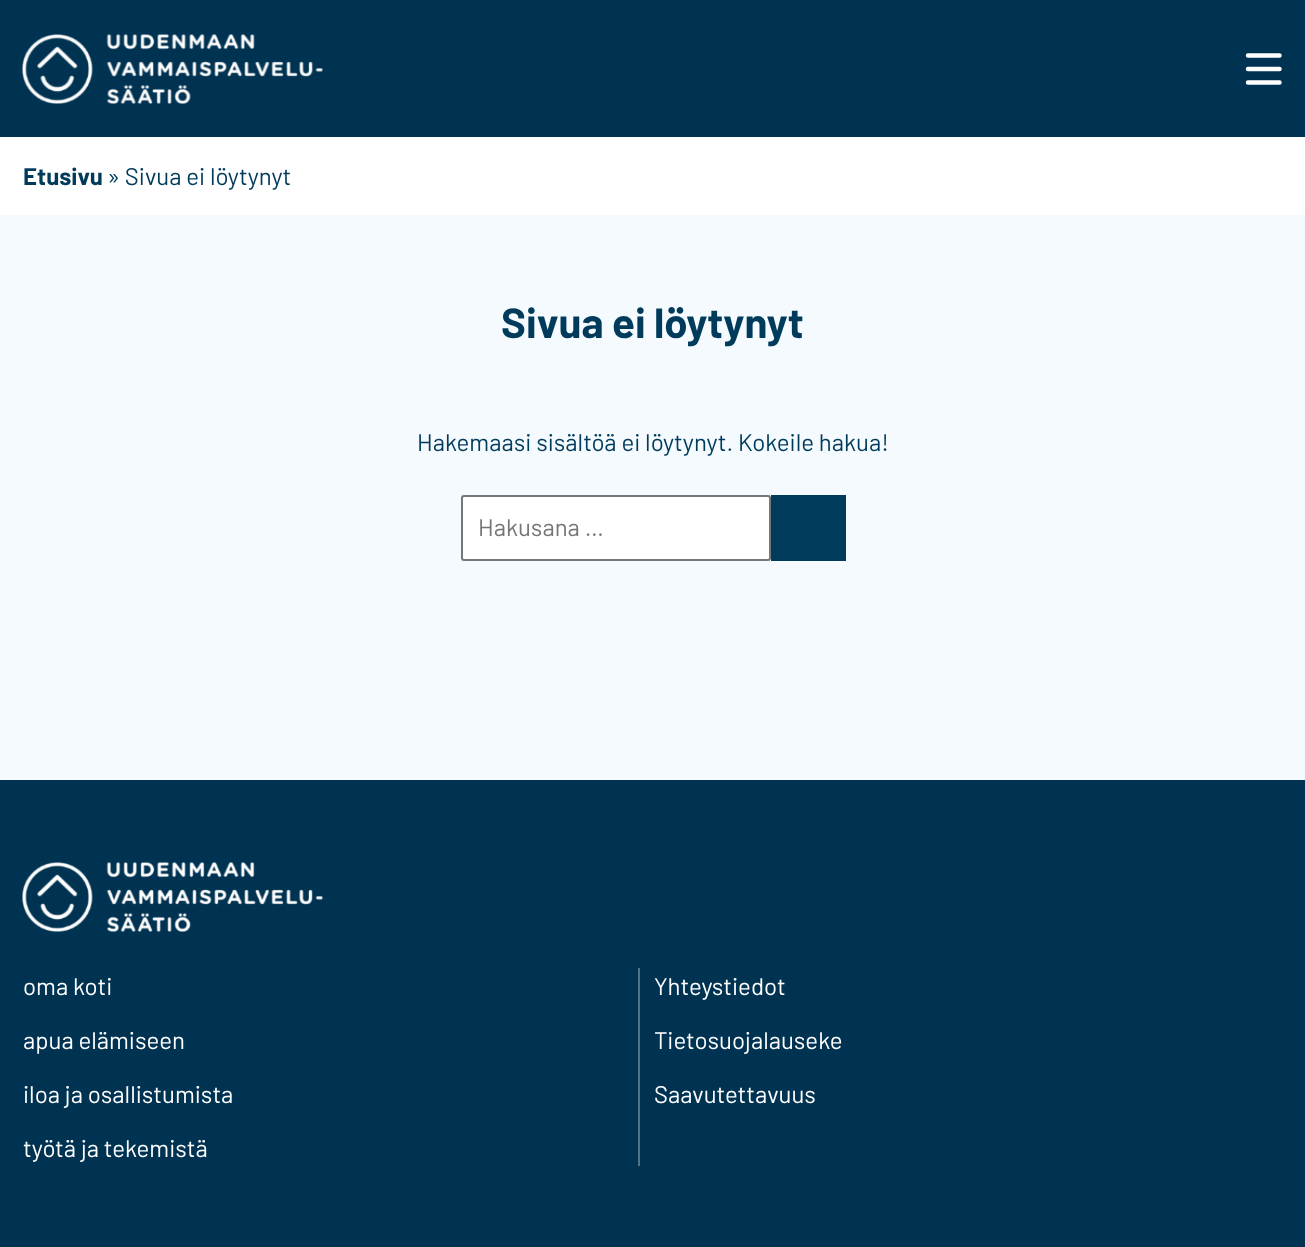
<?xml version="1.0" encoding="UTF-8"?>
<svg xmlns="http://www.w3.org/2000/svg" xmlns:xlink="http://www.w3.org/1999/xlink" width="1305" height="1247">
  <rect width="100%" height="100%" fill="#f4fafd" />
  <rect width="1305" height="137" fill="#003251" />
  <image x="22" y="34" width="301" height="70" xlink:href="image1.png" />
  <path d="M 1248 55.5 h 31.5 m -31.5 13.5 h 31.5 m -31.5 13.5 h 31.5" fill="none" stroke="#ffffff" stroke-width="4.5" stroke-linecap="round" />
  <rect y="137" width="1305" height="78" fill="#ffffff" />
  <rect x="462" y="496" width="308" height="64" rx="2" fill="#ffffff" stroke="#767676" stroke-width="2" />
  <rect x="771" y="495" width="75" height="66" fill="#003b5c" />
  <rect y="780" width="1305" height="467" fill="#003251" />
  <image x="22" y="862" width="301" height="70" xlink:href="image2.png" />
  <rect x="638" y="968" width="2" height="198" fill="#517386" />
  <text x="23" y="185" style="font-family: Barlow; font-size: 24px; font-weight: bold; fill: #003b5c">Etusivu</text>
  <text x="107" y="185" style="font-family: Barlow; font-size: 24px; fill: #003b5c">» Sivua ei löytynyt</text>
  <text x="501" y="338" style="font-family: Barlow; font-size: 42px; font-weight: bold; fill: #003b5c">Sivua ei löytynyt</text>
  <text x="417" y="451" style="font-family: Barlow; font-size: 24px; fill: #003b5c">Hakemaasi sisältöä ei löytynyt. Kokeile hakua!</text>
  <text x="478" y="536" style="font-family: Barlow; font-size: 24px; fill: #757575">Hakusana …</text>
  <text x="23" y="995" style="font-family: Barlow; font-size: 24px; fill: #ffffff">oma koti</text>
  <text x="23" y="1049" style="font-family: Barlow; font-size: 24px; fill: #ffffff">apua elämiseen</text>
  <text x="23" y="1103" style="font-family: Barlow; font-size: 24px; fill: #ffffff">iloa ja osallistumista</text>
  <text x="23" y="1157" style="font-family: Barlow; font-size: 24px; fill: #ffffff">työtä ja tekemistä</text>
  <text x="654" y="995" style="font-family: Barlow; font-size: 24px; fill: #ffffff">Yhteystiedot</text>
  <text x="654" y="1049" style="font-family: Barlow; font-size: 24px; fill: #ffffff">Tietosuojalauseke</text>
  <text x="654" y="1103" style="font-family: Barlow; font-size: 24px; fill: #ffffff">Saavutettavuus</text>
</svg>
